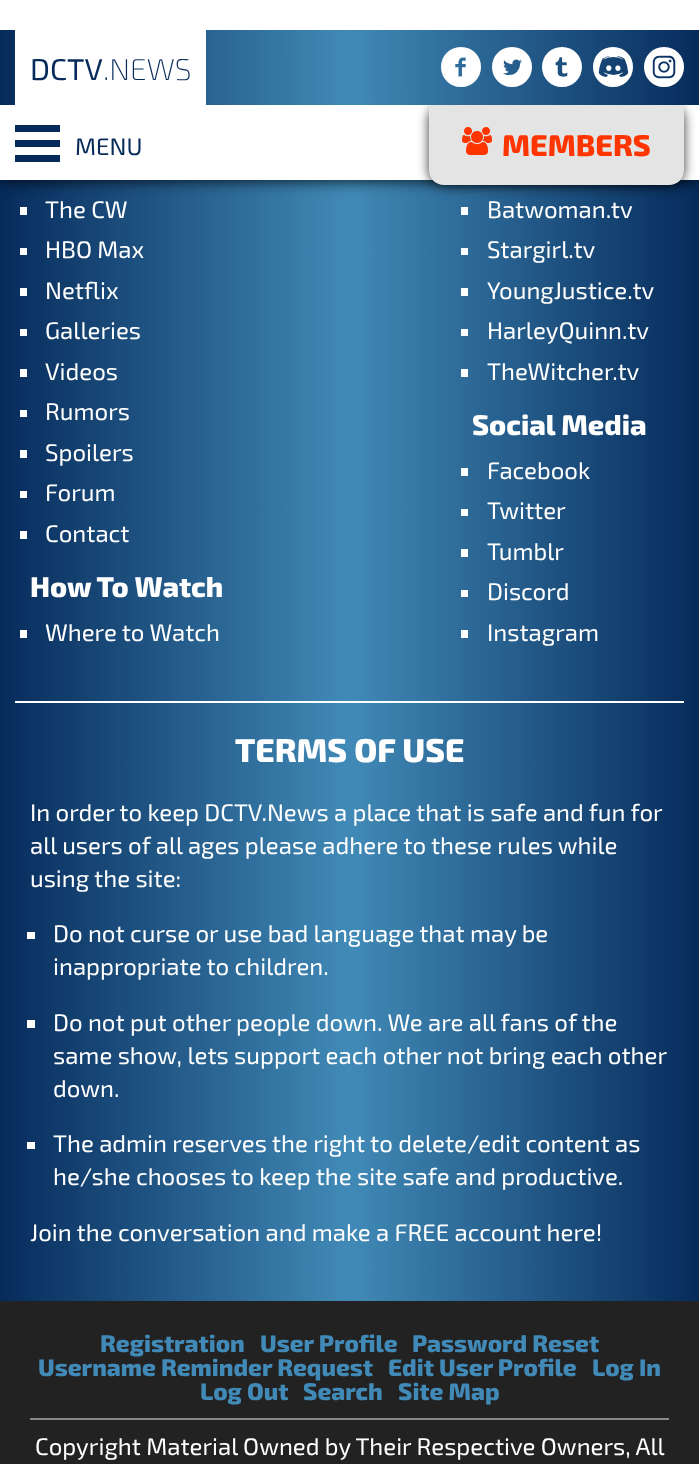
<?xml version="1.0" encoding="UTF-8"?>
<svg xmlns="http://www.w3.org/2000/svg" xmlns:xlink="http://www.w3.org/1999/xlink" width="699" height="1464">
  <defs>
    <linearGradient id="g1" gradientUnits="userSpaceOnUse" x1="0" y1="88" x2="699" y2="88"><stop offset="0" stop-color="#062b5b" /><stop offset="0.5" stop-color="#418ab7" /><stop offset="1" stop-color="#062b5b" /></linearGradient>
    <linearGradient id="g2" gradientUnits="userSpaceOnUse" x1="0" y1="68" x2="699" y2="67"><stop offset="0" stop-color="#062b5b" /><stop offset="0.5" stop-color="#418ab7" /><stop offset="1" stop-color="#062b5b" /></linearGradient>
  </defs>
  <rect width="100%" height="100%" fill="#ffffff" />
  <rect y="180" width="699" height="1121" fill="url(#g1)" />
  <rect width="699" height="180" fill="#000000" fill-opacity="0.9" filter="blur(7.5px)" />
  <rect width="699" height="180" fill="#ffffff" />
  <rect x="429" y="105" width="255" height="80" rx="15" fill="#000000" fill-opacity="0.8" filter="blur(6px)" />
  <rect y="30" width="699" height="75" fill="url(#g2)" />
  <rect x="15" y="30" width="191" height="75" fill="#ffffff" />
  <rect x="15" y="125" width="45" height="7" fill="#062b5b" />
  <rect x="15" y="140" width="45" height="7" fill="#062b5b" />
  <rect x="15" y="155" width="45" height="7" fill="#062b5b" />
  <path d="M 429 105 h 255 v 65 c 0 8.5 -6.5 15 -15 15 h -225 c -8.5 0 -15 -6.5 -15 -15 z" fill="#e4e4e4" />
  <image x="462" y="127" width="30" height="28" xlink:href="image1.png" />
  <rect x="15" y="701" width="669" height="2" fill="#ffffff" />
  <rect x="20" y="207" width="7" height="8" fill="#ffffff" />
  <rect x="20" y="248" width="7" height="7" fill="#ffffff" />
  <rect x="20" y="288" width="7" height="8" fill="#ffffff" />
  <rect x="20" y="329" width="7" height="7" fill="#ffffff" />
  <rect x="20" y="369" width="7" height="8" fill="#ffffff" />
  <rect x="20" y="410" width="7" height="7" fill="#ffffff" />
  <rect x="20" y="450" width="7" height="8" fill="#ffffff" />
  <rect x="20" y="491" width="7" height="7" fill="#ffffff" />
  <rect x="20" y="531" width="7" height="8" fill="#ffffff" />
  <rect x="20" y="630" width="7" height="8" fill="#ffffff" />
  <rect x="461" y="207" width="7" height="8" fill="#ffffff" />
  <rect x="461" y="248" width="7" height="7" fill="#ffffff" />
  <rect x="461" y="288" width="7" height="8" fill="#ffffff" />
  <rect x="461" y="329" width="7" height="7" fill="#ffffff" />
  <rect x="461" y="369" width="7" height="8" fill="#ffffff" />
  <rect x="461" y="468" width="7" height="8" fill="#ffffff" />
  <rect x="461" y="509" width="7" height="7" fill="#ffffff" />
  <rect x="461" y="549" width="7" height="8" fill="#ffffff" />
  <rect x="461" y="590" width="7" height="7" fill="#ffffff" />
  <rect x="461" y="630" width="7" height="8" fill="#ffffff" />
  <rect x="27" y="932" width="8" height="7" fill="#ffffff" />
  <rect x="27" y="1020" width="8" height="8" fill="#ffffff" />
  <rect x="27" y="1142" width="8" height="7" fill="#ffffff" />
  <rect y="1301" width="699" height="163" fill="#222222" />
  <rect x="30" y="1418" width="639" height="2" fill="#888888" />
  <text x="30" y="80" style="font-family: 'Exo 2'; font-size: 30px; fill: #062b5b">DCTV</text>
  <text x="103" y="80" style="font-family: 'Exo 2'; font-size: 30px; font-weight: 200; fill: #062b5b">.NEWS</text>
  <text x="441" y="87" style="font-family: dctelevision; font-size: 40px; fill: #ffffff">A</text>
  <text x="492" y="87" style="font-family: dctelevision; font-size: 40px; fill: #ffffff">B</text>
  <text x="542" y="87" style="font-family: dctelevision; font-size: 40px; fill: #ffffff">C</text>
  <text x="593" y="87" style="font-family: dctelevision; font-size: 40px; fill: #ffffff">g</text>
  <text x="644" y="87" style="font-family: dctelevision; font-size: 40px; fill: #ffffff">E</text>
  <text x="75" y="155" style="font-family: 'Exo 2'; font-size: 24px; fill: #062b5b">MENU</text>
  <text x="502" y="156" style="font-family: 'Exo 2'; font-size: 30px; font-weight: 800; fill: #ff3500">MEMBERS</text>
  <text x="45" y="218" style="font-family: 'Exo 2'; font-size: 24px; fill: #ffffff">The CW</text>
  <text x="45" y="258" style="font-family: 'Exo 2'; font-size: 24px; fill: #ffffff">HBO Max</text>
  <text x="45" y="299" style="font-family: 'Exo 2'; font-size: 24px; fill: #ffffff">Netflix</text>
  <text x="45" y="339" style="font-family: 'Exo 2'; font-size: 24px; fill: #ffffff">Galleries</text>
  <text x="45" y="380" style="font-family: 'Exo 2'; font-size: 24px; fill: #ffffff">Videos</text>
  <text x="45" y="420" style="font-family: 'Exo 2'; font-size: 24px; fill: #ffffff">Rumors</text>
  <text x="45" y="461" style="font-family: 'Exo 2'; font-size: 24px; fill: #ffffff">Spoilers</text>
  <text x="45" y="501" style="font-family: 'Exo 2'; font-size: 24px; fill: #ffffff">Forum</text>
  <text x="45" y="542" style="font-family: 'Exo 2'; font-size: 24px; fill: #ffffff">Contact</text>
  <text x="30" y="597" style="font-family: 'Exo 2'; font-size: 28.5px; font-weight: 800; fill: #ffffff">How To Watch</text>
  <text x="45" y="641" style="font-family: 'Exo 2'; font-size: 24px; fill: #ffffff">Where to Watch</text>
  <text x="487" y="218" style="font-family: 'Exo 2'; font-size: 24px; fill: #ffffff">Batwoman.tv</text>
  <text x="487" y="258" style="font-family: 'Exo 2'; font-size: 24px; fill: #ffffff">Stargirl.tv</text>
  <text x="487" y="299" style="font-family: 'Exo 2'; font-size: 24px; fill: #ffffff">YoungJustice.tv</text>
  <text x="487" y="339" style="font-family: 'Exo 2'; font-size: 24px; fill: #ffffff">HarleyQuinn.tv</text>
  <text x="487" y="380" style="font-family: 'Exo 2'; font-size: 24px; fill: #ffffff">TheWitcher.tv</text>
  <text x="472" y="435" style="font-family: 'Exo 2'; font-size: 28.5px; font-weight: 800; fill: #ffffff">Social Media</text>
  <text x="487" y="479" style="font-family: 'Exo 2'; font-size: 24px; fill: #ffffff">Facebook</text>
  <text x="487" y="519" style="font-family: 'Exo 2'; font-size: 24px; fill: #ffffff">Twitter</text>
  <text x="487" y="560" style="font-family: 'Exo 2'; font-size: 24px; fill: #ffffff">Tumblr</text>
  <text x="487" y="600" style="font-family: 'Exo 2'; font-size: 24px; fill: #ffffff">Discord</text>
  <text x="487" y="641" style="font-family: 'Exo 2'; font-size: 24px; fill: #ffffff">Instagram</text>
  <text x="235" y="762" style="font-family: 'Exo 2'; font-size: 33px; font-weight: 800; fill: #ffffff">TERMS OF USE</text>
  <text x="30" y="821" style="font-family: 'Exo 2'; font-size: 24px; fill: #ffffff">In order to keep DCTV.News a place that is safe and fun for</text>
  <text x="30" y="854" style="font-family: 'Exo 2'; font-size: 24px; fill: #ffffff">all users of all ages please adhere to these rules while</text>
  <text x="30" y="887" style="font-family: 'Exo 2'; font-size: 24px; fill: #ffffff">using the site:</text>
  <text x="53" y="942" style="font-family: 'Exo 2'; font-size: 24px; fill: #ffffff">Do not curse or use bad language that may be</text>
  <text x="53" y="975" style="font-family: 'Exo 2'; font-size: 24px; fill: #ffffff">inappropriate to children.</text>
  <text x="53" y="1031" style="font-family: 'Exo 2'; font-size: 24px; fill: #ffffff">Do not put other people down. We are all fans of the</text>
  <text x="53" y="1064" style="font-family: 'Exo 2'; font-size: 24px; fill: #ffffff">same show, lets support each other not bring each other</text>
  <text x="53" y="1097" style="font-family: 'Exo 2'; font-size: 24px; fill: #ffffff">down.</text>
  <text x="53" y="1152" style="font-family: 'Exo 2'; font-size: 24px; fill: #ffffff">The admin reserves the right to delete/edit content as</text>
  <text x="53" y="1185" style="font-family: 'Exo 2'; font-size: 24px; fill: #ffffff">he/she chooses to keep the site safe and productive.</text>
  <text x="30" y="1241" style="font-family: 'Exo 2'; font-size: 24px; fill: #ffffff">Join the conversation and make a FREE account here!</text>
  <text x="100" y="1352" style="font-family: 'Exo 2'; font-size: 24px; font-weight: 800; fill: #418ab7">Registration</text>
  <text x="260" y="1352" style="font-family: 'Exo 2'; font-size: 24px; font-weight: 800; fill: #418ab7">User Profile</text>
  <text x="412" y="1352" style="font-family: 'Exo 2'; font-size: 24px; font-weight: 800; fill: #418ab7">Password Reset</text>
  <text x="38" y="1376" style="font-family: 'Exo 2'; font-size: 24px; font-weight: 800; fill: #418ab7">Username Reminder Request</text>
  <text x="388" y="1376" style="font-family: 'Exo 2'; font-size: 24px; font-weight: 800; fill: #418ab7">Edit User Profile</text>
  <text x="592" y="1376" style="font-family: 'Exo 2'; font-size: 24px; font-weight: 800; fill: #418ab7">Log In</text>
  <text x="200" y="1400" style="font-family: 'Exo 2'; font-size: 24px; font-weight: 800; fill: #418ab7">Log Out</text>
  <text x="303" y="1400" style="font-family: 'Exo 2'; font-size: 24px; font-weight: 800; fill: #418ab7">Search</text>
  <text x="398" y="1400" style="font-family: 'Exo 2'; font-size: 24px; font-weight: 800; fill: #418ab7">Site Map</text>
  <text x="35" y="1455" style="font-family: 'Exo 2'; font-size: 24px; fill: #ffffff">Copyright Material Owned by Their Respective Owners, All</text>
</svg>
